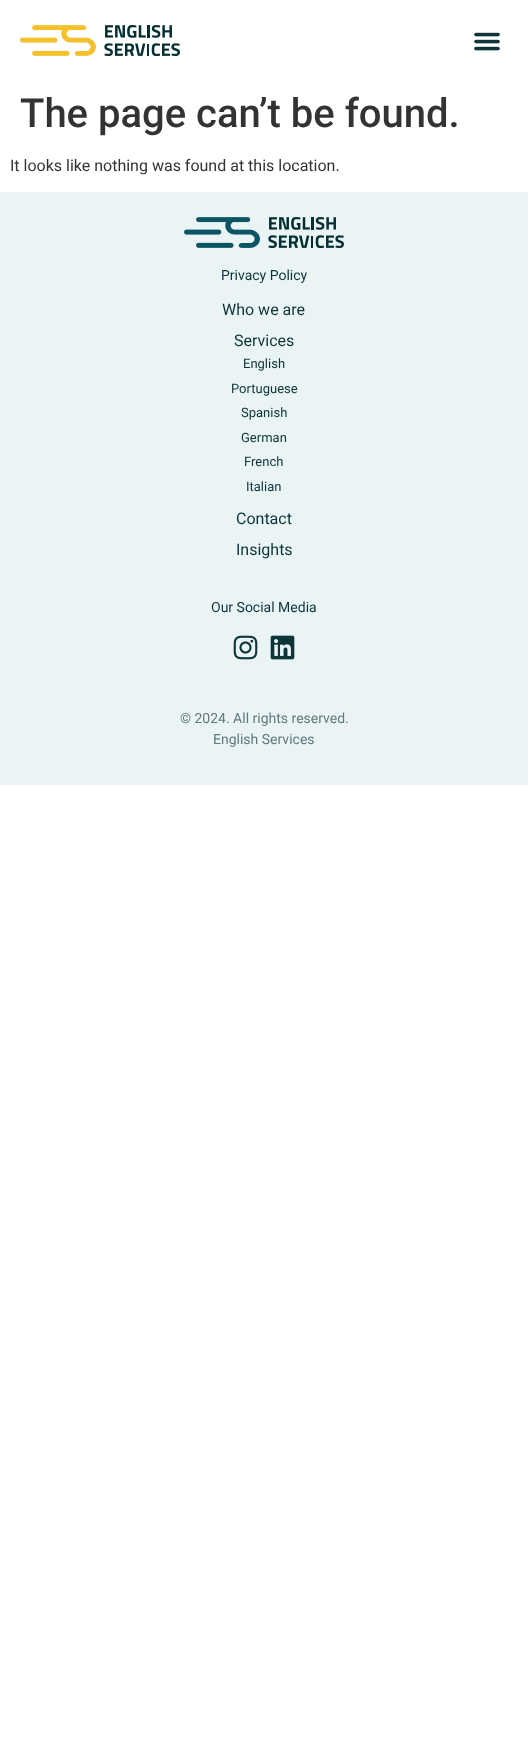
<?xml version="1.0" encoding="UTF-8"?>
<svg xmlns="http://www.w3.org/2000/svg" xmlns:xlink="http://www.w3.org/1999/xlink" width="528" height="1739">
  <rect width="100%" height="100%" fill="#ffffff" />
  <image x="20" y="25" width="160" height="31" xlink:href="image1.png" />
  <image x="474" y="32" width="26" height="19" xlink:href="image2.png" />
  <rect y="192" width="528" height="593" fill="#eaf4f5" />
  <image x="184" y="217" width="160" height="31" xlink:href="image3.png" />
  <image x="233" y="635" width="25" height="25" xlink:href="image4.png" />
  <image x="270" y="635" width="25" height="25" xlink:href="image5.png" />
  <text x="20" y="127" style="font-family: Roboto; font-size: 40px; font-weight: 500; fill: #333333">The page can’t be found.</text>
  <text x="10" y="171" style="font-family: Roboto; font-size: 16px; fill: #333333">It looks like nothing was found at this location.</text>
  <text x="221" y="280" style="font-family: Roboto; font-size: 14px; fill: #0c3439">Privacy Policy</text>
  <text x="222" y="315" style="font-family: Roboto; font-size: 16px; fill: #0c3439">Who we are</text>
  <text x="234" y="346" style="font-family: Roboto; font-size: 16px; fill: #0c3439">Services</text>
  <text x="243" y="368" style="font-family: Roboto; font-size: 13px; fill: #0c3439">English</text>
  <text x="231" y="393" style="font-family: Roboto; font-size: 13px; fill: #0c3439">Portuguese</text>
  <text x="241" y="417" style="font-family: Roboto; font-size: 13px; fill: #0c3439">Spanish</text>
  <text x="241" y="442" style="font-family: Roboto; font-size: 13px; fill: #0c3439">German</text>
  <text x="244" y="466" style="font-family: Roboto; font-size: 13px; fill: #0c3439">French</text>
  <text x="246" y="491" style="font-family: Roboto; font-size: 13px; fill: #0c3439">Italian</text>
  <text x="236" y="524" style="font-family: Roboto; font-size: 16px; fill: #0c3439">Contact</text>
  <text x="236" y="555" style="font-family: Roboto; font-size: 16px; fill: #0c3439">Insights</text>
  <text x="211" y="612" style="font-family: Roboto; font-size: 14px; fill: #0c3439">Our Social Media</text>
  <text x="180" y="723" style="font-family: Roboto; font-size: 14px; fill: #60797d">© 2024. All rights reserved.</text>
  <text x="213" y="744" style="font-family: Roboto; font-size: 14px; fill: #60797d">English Services</text>
</svg>
